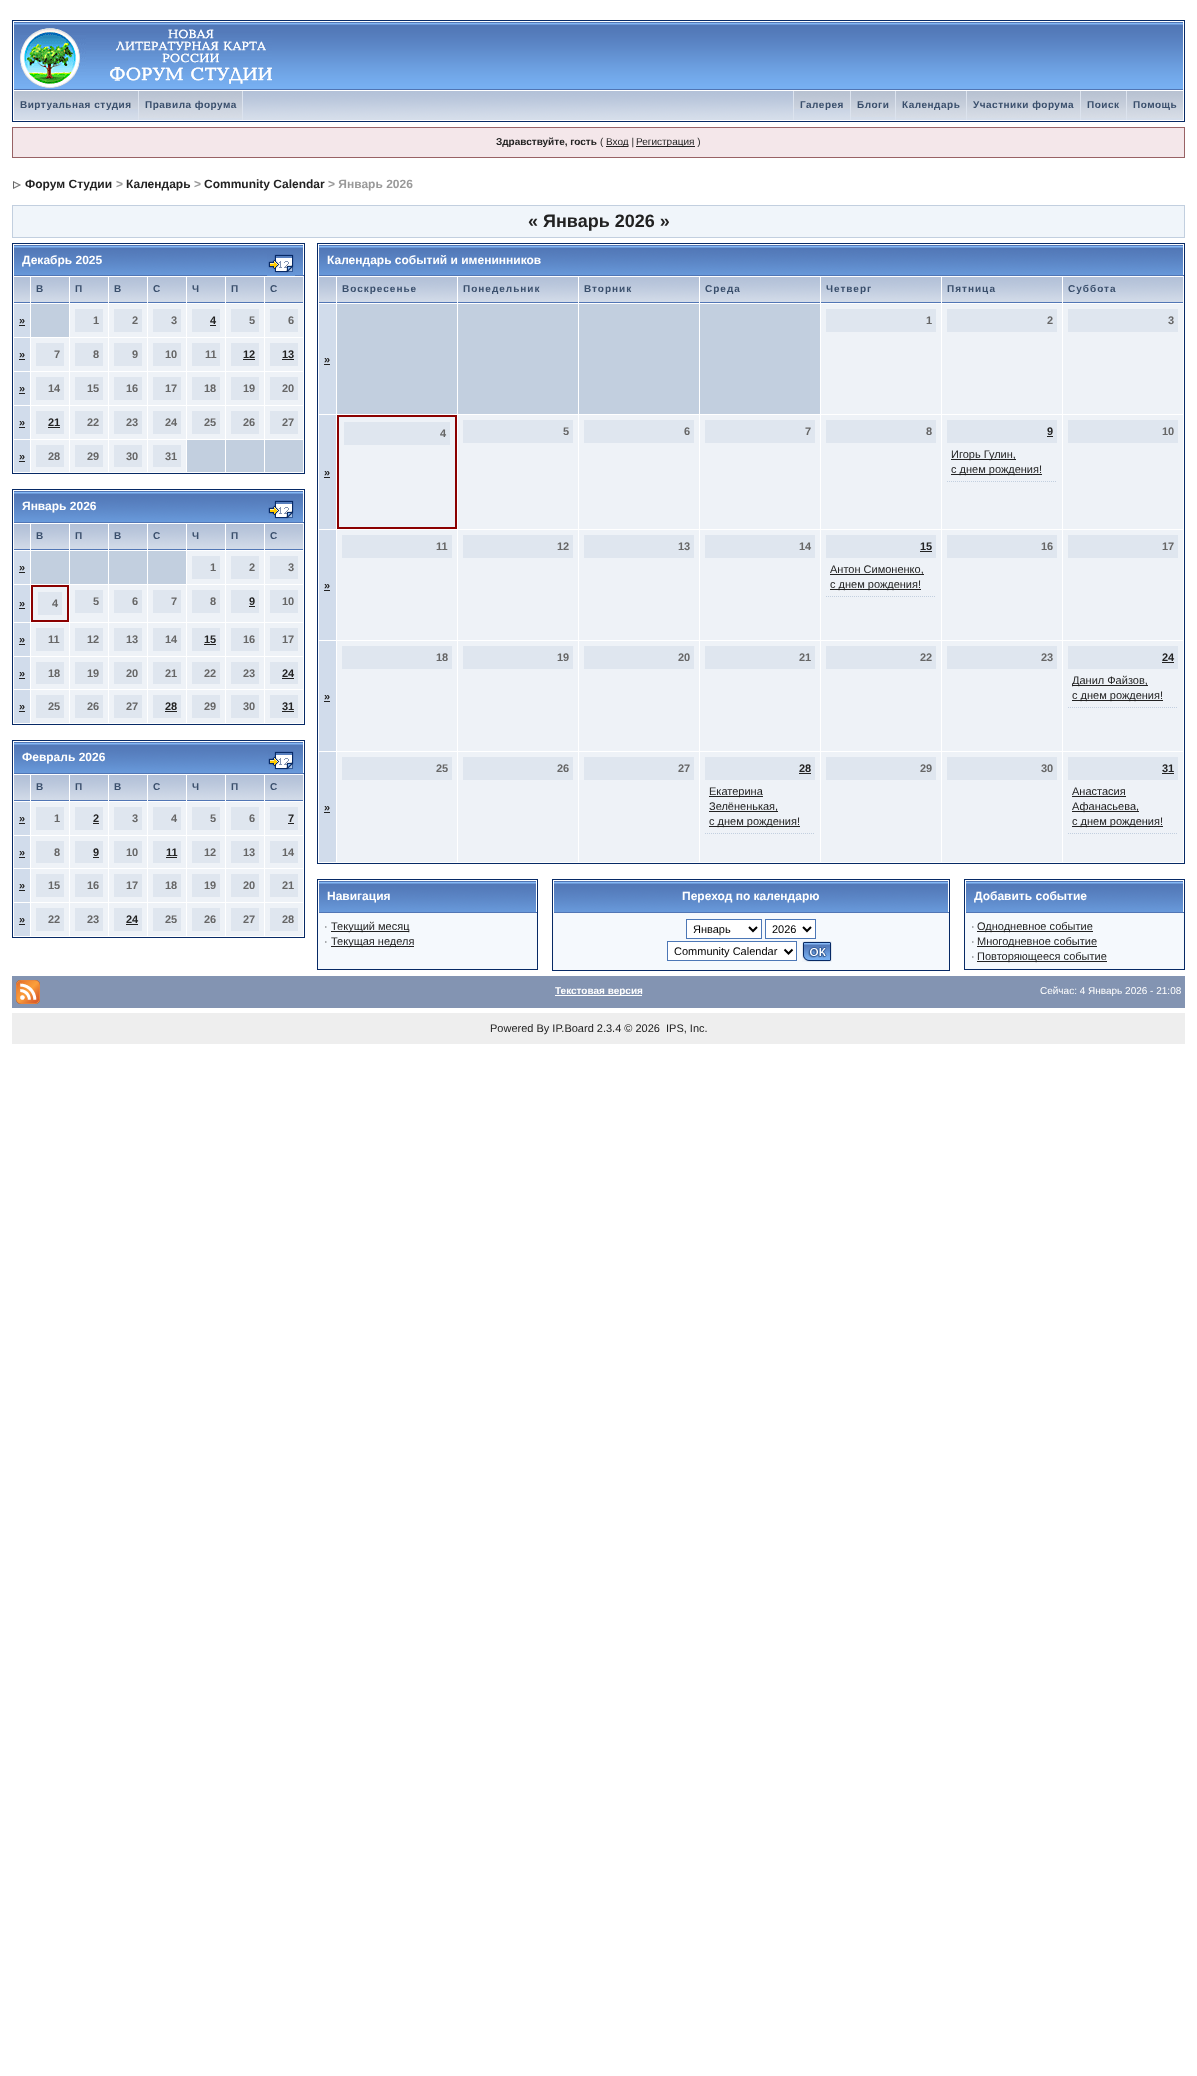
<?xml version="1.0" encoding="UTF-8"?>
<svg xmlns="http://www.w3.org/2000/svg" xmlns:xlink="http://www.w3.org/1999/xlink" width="1197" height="2076">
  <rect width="100%" height="100%" fill="#ffffff" />
  <rect x="12.5" y="20.5" width="1172" height="101" fill="none" stroke="#072a66" />
  <image x="14" y="22" width="1169" height="68" xlink:href="image1.png" />
  <image x="20" y="28" width="252" height="60" xlink:href="image2.png" />
  <image x="14" y="91" width="1169" height="29" xlink:href="image3.png" />
  <image x="14" y="91" width="124" height="18" xlink:href="image4.png" />
  <rect x="138" y="91" width="1" height="29" fill="#dce3ee" />
  <image x="139" y="91" width="103" height="27" xlink:href="image5.png" />
  <rect x="242" y="91" width="1" height="29" fill="#dce3ee" />
  <image x="794" y="91" width="56" height="18" xlink:href="image6.png" />
  <rect x="793" y="91" width="1" height="29" fill="#dce3ee" />
  <image x="851" y="91" width="44" height="26" xlink:href="image7.png" />
  <rect x="850" y="91" width="1" height="29" fill="#dce3ee" />
  <image x="896" y="91" width="70" height="27" xlink:href="image8.png" />
  <rect x="895" y="91" width="1" height="29" fill="#dce3ee" />
  <image x="967" y="91" width="113" height="27" xlink:href="image9.png" />
  <rect x="966" y="91" width="1" height="29" fill="#dce3ee" />
  <image x="1081" y="91" width="45" height="27" xlink:href="image10.png" />
  <rect x="1080" y="91" width="1" height="29" fill="#dce3ee" />
  <image x="1127" y="91" width="56" height="27" xlink:href="image11.png" />
  <rect x="1126" y="91" width="1" height="29" fill="#dce3ee" />
  <rect x="12.5" y="127.5" width="1172" height="30" fill="#f4e7ea" stroke="#986265" />
  <rect x="606" y="146" width="22" height="1" fill="#222222" />
  <rect x="636" y="146" width="59" height="1" fill="#222222" />
  <image x="13" y="181" width="8" height="8" xlink:href="image12.png" />
  <rect x="12.5" y="205.5" width="1172" height="32" fill="#f0f5fa" stroke="#c2cfdf" />
  <rect x="12.5" y="243.5" width="292" height="230" fill="none" stroke="#072a66" />
  <image x="14" y="245" width="289" height="30" xlink:href="image13.png" />
  <rect x="13" y="275" width="291" height="1" fill="#5176b5" />
  <rect x="13" y="275" width="1" height="1" fill="#ffffff" />
  <image x="267" y="254" width="28" height="22" xlink:href="image14.png" />
  <image x="14" y="277" width="16" height="25" xlink:href="image15.png" />
  <rect x="14" y="302" width="16" height="1" fill="#5176b5" />
  <image x="31" y="277" width="38" height="25" xlink:href="image16.png" />
  <rect x="31" y="302" width="38" height="1" fill="#5176b5" />
  <image x="70" y="277" width="38" height="25" xlink:href="image16.png" />
  <rect x="70" y="302" width="38" height="1" fill="#5176b5" />
  <image x="109" y="277" width="38" height="25" xlink:href="image16.png" />
  <rect x="109" y="302" width="38" height="1" fill="#5176b5" />
  <image x="148" y="277" width="38" height="25" xlink:href="image16.png" />
  <rect x="148" y="302" width="38" height="1" fill="#5176b5" />
  <image x="187" y="277" width="38" height="25" xlink:href="image16.png" />
  <rect x="187" y="302" width="38" height="1" fill="#5176b5" />
  <image x="226" y="277" width="38" height="25" xlink:href="image16.png" />
  <rect x="226" y="302" width="38" height="1" fill="#5176b5" />
  <image x="265" y="277" width="38" height="25" xlink:href="image16.png" />
  <rect x="265" y="302" width="38" height="1" fill="#5176b5" />
  <rect x="14" y="304" width="16" height="33" fill="#d1dceb" />
  <rect x="19" y="325" width="6" height="1" fill="#222222" />
  <rect x="31" y="304" width="38" height="33" fill="#c2cfdf" />
  <rect x="70" y="304" width="38" height="33" fill="#eef2f7" />
  <rect x="75" y="309" width="28" height="23" fill="#dfe6ef" />
  <rect x="109" y="304" width="38" height="33" fill="#eef2f7" />
  <rect x="114" y="309" width="28" height="23" fill="#dfe6ef" />
  <rect x="148" y="304" width="38" height="33" fill="#eef2f7" />
  <rect x="153" y="309" width="28" height="23" fill="#dfe6ef" />
  <rect x="187" y="304" width="38" height="33" fill="#eef2f7" />
  <rect x="192" y="309" width="28" height="23" fill="#dfe6ef" />
  <rect x="210" y="325" width="6" height="1" fill="#222222" />
  <rect x="226" y="304" width="38" height="33" fill="#eef2f7" />
  <rect x="231" y="309" width="28" height="23" fill="#dfe6ef" />
  <rect x="265" y="304" width="38" height="33" fill="#eef2f7" />
  <rect x="270" y="309" width="28" height="23" fill="#dfe6ef" />
  <rect x="14" y="338" width="16" height="33" fill="#d1dceb" />
  <rect x="19" y="359" width="6" height="1" fill="#222222" />
  <rect x="31" y="338" width="38" height="33" fill="#eef2f7" />
  <rect x="36" y="343" width="28" height="23" fill="#dfe6ef" />
  <rect x="70" y="338" width="38" height="33" fill="#eef2f7" />
  <rect x="75" y="343" width="28" height="23" fill="#dfe6ef" />
  <rect x="109" y="338" width="38" height="33" fill="#eef2f7" />
  <rect x="114" y="343" width="28" height="23" fill="#dfe6ef" />
  <rect x="148" y="338" width="38" height="33" fill="#eef2f7" />
  <rect x="153" y="343" width="28" height="23" fill="#dfe6ef" />
  <rect x="187" y="338" width="38" height="33" fill="#eef2f7" />
  <rect x="192" y="343" width="28" height="23" fill="#dfe6ef" />
  <rect x="226" y="338" width="38" height="33" fill="#eef2f7" />
  <rect x="231" y="343" width="28" height="23" fill="#dfe6ef" />
  <rect x="243" y="359" width="12" height="1" fill="#222222" />
  <rect x="265" y="338" width="38" height="33" fill="#eef2f7" />
  <rect x="270" y="343" width="28" height="23" fill="#dfe6ef" />
  <rect x="282" y="359" width="12" height="1" fill="#222222" />
  <rect x="14" y="372" width="16" height="33" fill="#d1dceb" />
  <rect x="19" y="393" width="6" height="1" fill="#222222" />
  <rect x="31" y="372" width="38" height="33" fill="#eef2f7" />
  <rect x="36" y="377" width="28" height="23" fill="#dfe6ef" />
  <rect x="70" y="372" width="38" height="33" fill="#eef2f7" />
  <rect x="75" y="377" width="28" height="23" fill="#dfe6ef" />
  <rect x="109" y="372" width="38" height="33" fill="#eef2f7" />
  <rect x="114" y="377" width="28" height="23" fill="#dfe6ef" />
  <rect x="148" y="372" width="38" height="33" fill="#eef2f7" />
  <rect x="153" y="377" width="28" height="23" fill="#dfe6ef" />
  <rect x="187" y="372" width="38" height="33" fill="#eef2f7" />
  <rect x="192" y="377" width="28" height="23" fill="#dfe6ef" />
  <rect x="226" y="372" width="38" height="33" fill="#eef2f7" />
  <rect x="231" y="377" width="28" height="23" fill="#dfe6ef" />
  <rect x="265" y="372" width="38" height="33" fill="#eef2f7" />
  <rect x="270" y="377" width="28" height="23" fill="#dfe6ef" />
  <rect x="14" y="406" width="16" height="33" fill="#d1dceb" />
  <rect x="19" y="427" width="6" height="1" fill="#222222" />
  <rect x="31" y="406" width="38" height="33" fill="#eef2f7" />
  <rect x="36" y="411" width="28" height="23" fill="#dfe6ef" />
  <rect x="48" y="427" width="12" height="1" fill="#222222" />
  <rect x="70" y="406" width="38" height="33" fill="#eef2f7" />
  <rect x="75" y="411" width="28" height="23" fill="#dfe6ef" />
  <rect x="109" y="406" width="38" height="33" fill="#eef2f7" />
  <rect x="114" y="411" width="28" height="23" fill="#dfe6ef" />
  <rect x="148" y="406" width="38" height="33" fill="#eef2f7" />
  <rect x="153" y="411" width="28" height="23" fill="#dfe6ef" />
  <rect x="187" y="406" width="38" height="33" fill="#eef2f7" />
  <rect x="192" y="411" width="28" height="23" fill="#dfe6ef" />
  <rect x="226" y="406" width="38" height="33" fill="#eef2f7" />
  <rect x="231" y="411" width="28" height="23" fill="#dfe6ef" />
  <rect x="265" y="406" width="38" height="33" fill="#eef2f7" />
  <rect x="270" y="411" width="28" height="23" fill="#dfe6ef" />
  <rect x="14" y="440" width="16" height="32" fill="#d1dceb" />
  <rect x="19" y="461" width="6" height="1" fill="#222222" />
  <rect x="31" y="440" width="38" height="32" fill="#eef2f7" />
  <rect x="36" y="445" width="28" height="22" fill="#dfe6ef" />
  <rect x="70" y="440" width="38" height="32" fill="#eef2f7" />
  <rect x="75" y="445" width="28" height="22" fill="#dfe6ef" />
  <rect x="109" y="440" width="38" height="32" fill="#eef2f7" />
  <rect x="114" y="445" width="28" height="22" fill="#dfe6ef" />
  <rect x="148" y="440" width="38" height="32" fill="#eef2f7" />
  <rect x="153" y="445" width="28" height="22" fill="#dfe6ef" />
  <rect x="187" y="440" width="38" height="32" fill="#c2cfdf" />
  <rect x="226" y="440" width="38" height="32" fill="#c2cfdf" />
  <rect x="265" y="440" width="38" height="32" fill="#c2cfdf" />
  <rect x="12.5" y="489.5" width="292" height="235" fill="none" stroke="#072a66" />
  <image x="14" y="491" width="289" height="31" xlink:href="image17.png" />
  <rect x="13" y="522" width="291" height="1" fill="#5176b5" />
  <rect x="13" y="522" width="1" height="1" fill="#ffffff" />
  <image x="268" y="500" width="26" height="19" xlink:href="image18.png" />
  <image x="14" y="524" width="16" height="25" xlink:href="image15.png" />
  <rect x="14" y="549" width="16" height="1" fill="#5176b5" />
  <image x="31" y="524" width="38" height="25" xlink:href="image16.png" />
  <rect x="31" y="549" width="38" height="1" fill="#5176b5" />
  <image x="70" y="524" width="38" height="25" xlink:href="image16.png" />
  <rect x="70" y="549" width="38" height="1" fill="#5176b5" />
  <image x="109" y="524" width="38" height="25" xlink:href="image16.png" />
  <rect x="109" y="549" width="38" height="1" fill="#5176b5" />
  <image x="148" y="524" width="38" height="25" xlink:href="image16.png" />
  <rect x="148" y="549" width="38" height="1" fill="#5176b5" />
  <image x="187" y="524" width="38" height="25" xlink:href="image16.png" />
  <rect x="187" y="549" width="38" height="1" fill="#5176b5" />
  <image x="226" y="524" width="38" height="25" xlink:href="image16.png" />
  <rect x="226" y="549" width="38" height="1" fill="#5176b5" />
  <image x="265" y="524" width="38" height="25" xlink:href="image16.png" />
  <rect x="265" y="549" width="38" height="1" fill="#5176b5" />
  <rect x="14" y="551" width="16" height="33" fill="#d1dceb" />
  <rect x="19" y="572" width="6" height="1" fill="#222222" />
  <rect x="31" y="551" width="38" height="33" fill="#c2cfdf" />
  <rect x="70" y="551" width="38" height="33" fill="#c2cfdf" />
  <rect x="109" y="551" width="38" height="33" fill="#c2cfdf" />
  <rect x="148" y="551" width="38" height="33" fill="#c2cfdf" />
  <rect x="187" y="551" width="38" height="33" fill="#eef2f7" />
  <rect x="192" y="556" width="28" height="23" fill="#dfe6ef" />
  <rect x="226" y="551" width="38" height="33" fill="#eef2f7" />
  <rect x="231" y="556" width="28" height="23" fill="#dfe6ef" />
  <rect x="265" y="551" width="38" height="33" fill="#eef2f7" />
  <rect x="270" y="556" width="28" height="23" fill="#dfe6ef" />
  <rect x="14" y="585" width="16" height="37" fill="#d1dceb" />
  <rect x="19" y="608" width="6" height="1" fill="#222222" />
  <rect x="32" y="586" width="36" height="35" fill="#eef2f7" stroke="#8b0000" stroke-width="2" />
  <rect x="38" y="592" width="24" height="23" fill="#dfe6ef" />
  <rect x="70" y="585" width="38" height="37" fill="#eef2f7" />
  <rect x="75" y="590" width="28" height="23" fill="#dfe6ef" />
  <rect x="109" y="585" width="38" height="37" fill="#eef2f7" />
  <rect x="114" y="590" width="28" height="23" fill="#dfe6ef" />
  <rect x="148" y="585" width="38" height="37" fill="#eef2f7" />
  <rect x="153" y="590" width="28" height="23" fill="#dfe6ef" />
  <rect x="187" y="585" width="38" height="37" fill="#eef2f7" />
  <rect x="192" y="590" width="28" height="23" fill="#dfe6ef" />
  <rect x="226" y="585" width="38" height="37" fill="#eef2f7" />
  <rect x="231" y="590" width="28" height="23" fill="#dfe6ef" />
  <rect x="249" y="606" width="6" height="1" fill="#222222" />
  <rect x="265" y="585" width="38" height="37" fill="#eef2f7" />
  <rect x="270" y="590" width="28" height="23" fill="#dfe6ef" />
  <rect x="14" y="623" width="16" height="33" fill="#d1dceb" />
  <rect x="19" y="644" width="6" height="1" fill="#222222" />
  <rect x="31" y="623" width="38" height="33" fill="#eef2f7" />
  <rect x="36" y="628" width="28" height="23" fill="#dfe6ef" />
  <rect x="70" y="623" width="38" height="33" fill="#eef2f7" />
  <rect x="75" y="628" width="28" height="23" fill="#dfe6ef" />
  <rect x="109" y="623" width="38" height="33" fill="#eef2f7" />
  <rect x="114" y="628" width="28" height="23" fill="#dfe6ef" />
  <rect x="148" y="623" width="38" height="33" fill="#eef2f7" />
  <rect x="153" y="628" width="28" height="23" fill="#dfe6ef" />
  <rect x="187" y="623" width="38" height="33" fill="#eef2f7" />
  <rect x="192" y="628" width="28" height="23" fill="#dfe6ef" />
  <rect x="204" y="644" width="12" height="1" fill="#222222" />
  <rect x="226" y="623" width="38" height="33" fill="#eef2f7" />
  <rect x="231" y="628" width="28" height="23" fill="#dfe6ef" />
  <rect x="265" y="623" width="38" height="33" fill="#eef2f7" />
  <rect x="270" y="628" width="28" height="23" fill="#dfe6ef" />
  <rect x="14" y="657" width="16" height="32" fill="#d1dceb" />
  <rect x="19" y="678" width="6" height="1" fill="#222222" />
  <rect x="31" y="657" width="38" height="32" fill="#eef2f7" />
  <rect x="36" y="662" width="28" height="22" fill="#dfe6ef" />
  <rect x="70" y="657" width="38" height="32" fill="#eef2f7" />
  <rect x="75" y="662" width="28" height="22" fill="#dfe6ef" />
  <rect x="109" y="657" width="38" height="32" fill="#eef2f7" />
  <rect x="114" y="662" width="28" height="22" fill="#dfe6ef" />
  <rect x="148" y="657" width="38" height="32" fill="#eef2f7" />
  <rect x="153" y="662" width="28" height="22" fill="#dfe6ef" />
  <rect x="187" y="657" width="38" height="32" fill="#eef2f7" />
  <rect x="192" y="662" width="28" height="22" fill="#dfe6ef" />
  <rect x="226" y="657" width="38" height="32" fill="#eef2f7" />
  <rect x="231" y="662" width="28" height="22" fill="#dfe6ef" />
  <rect x="265" y="657" width="38" height="32" fill="#eef2f7" />
  <rect x="270" y="662" width="28" height="22" fill="#dfe6ef" />
  <rect x="282" y="678" width="12" height="1" fill="#222222" />
  <rect x="14" y="690" width="16" height="33" fill="#d1dceb" />
  <rect x="19" y="711" width="6" height="1" fill="#222222" />
  <rect x="31" y="690" width="38" height="33" fill="#eef2f7" />
  <rect x="36" y="695" width="28" height="23" fill="#dfe6ef" />
  <rect x="70" y="690" width="38" height="33" fill="#eef2f7" />
  <rect x="75" y="695" width="28" height="23" fill="#dfe6ef" />
  <rect x="109" y="690" width="38" height="33" fill="#eef2f7" />
  <rect x="114" y="695" width="28" height="23" fill="#dfe6ef" />
  <rect x="148" y="690" width="38" height="33" fill="#eef2f7" />
  <rect x="153" y="695" width="28" height="23" fill="#dfe6ef" />
  <rect x="165" y="711" width="12" height="1" fill="#222222" />
  <rect x="187" y="690" width="38" height="33" fill="#eef2f7" />
  <rect x="192" y="695" width="28" height="23" fill="#dfe6ef" />
  <rect x="226" y="690" width="38" height="33" fill="#eef2f7" />
  <rect x="231" y="695" width="28" height="23" fill="#dfe6ef" />
  <rect x="265" y="690" width="38" height="33" fill="#eef2f7" />
  <rect x="270" y="695" width="28" height="23" fill="#dfe6ef" />
  <rect x="282" y="711" width="12" height="1" fill="#222222" />
  <rect x="12.5" y="740.5" width="292" height="197" fill="none" stroke="#072a66" />
  <image x="14" y="742" width="289" height="31" xlink:href="image17.png" />
  <rect x="13" y="773" width="291" height="1" fill="#5176b5" />
  <rect x="13" y="773" width="1" height="1" fill="#ffffff" />
  <image x="268" y="751" width="26" height="19" xlink:href="image18.png" />
  <image x="14" y="775" width="16" height="25" xlink:href="image15.png" />
  <rect x="14" y="800" width="16" height="1" fill="#5176b5" />
  <image x="31" y="775" width="38" height="25" xlink:href="image16.png" />
  <rect x="31" y="800" width="38" height="1" fill="#5176b5" />
  <image x="70" y="775" width="38" height="25" xlink:href="image16.png" />
  <rect x="70" y="800" width="38" height="1" fill="#5176b5" />
  <image x="109" y="775" width="38" height="25" xlink:href="image16.png" />
  <rect x="109" y="800" width="38" height="1" fill="#5176b5" />
  <image x="148" y="775" width="38" height="25" xlink:href="image16.png" />
  <rect x="148" y="800" width="38" height="1" fill="#5176b5" />
  <image x="187" y="775" width="38" height="25" xlink:href="image16.png" />
  <rect x="187" y="800" width="38" height="1" fill="#5176b5" />
  <image x="226" y="775" width="38" height="25" xlink:href="image16.png" />
  <rect x="226" y="800" width="38" height="1" fill="#5176b5" />
  <image x="265" y="775" width="38" height="25" xlink:href="image16.png" />
  <rect x="265" y="800" width="38" height="1" fill="#5176b5" />
  <rect x="14" y="802" width="16" height="33" fill="#d1dceb" />
  <rect x="19" y="823" width="6" height="1" fill="#222222" />
  <rect x="31" y="802" width="38" height="33" fill="#eef2f7" />
  <rect x="36" y="807" width="28" height="23" fill="#dfe6ef" />
  <rect x="70" y="802" width="38" height="33" fill="#eef2f7" />
  <rect x="75" y="807" width="28" height="23" fill="#dfe6ef" />
  <rect x="93" y="823" width="6" height="1" fill="#222222" />
  <rect x="109" y="802" width="38" height="33" fill="#eef2f7" />
  <rect x="114" y="807" width="28" height="23" fill="#dfe6ef" />
  <rect x="148" y="802" width="38" height="33" fill="#eef2f7" />
  <rect x="153" y="807" width="28" height="23" fill="#dfe6ef" />
  <rect x="187" y="802" width="38" height="33" fill="#eef2f7" />
  <rect x="192" y="807" width="28" height="23" fill="#dfe6ef" />
  <rect x="226" y="802" width="38" height="33" fill="#eef2f7" />
  <rect x="231" y="807" width="28" height="23" fill="#dfe6ef" />
  <rect x="265" y="802" width="38" height="33" fill="#eef2f7" />
  <rect x="270" y="807" width="28" height="23" fill="#dfe6ef" />
  <rect x="288" y="823" width="6" height="1" fill="#222222" />
  <rect x="14" y="836" width="16" height="32" fill="#d1dceb" />
  <rect x="19" y="857" width="6" height="1" fill="#222222" />
  <rect x="31" y="836" width="38" height="32" fill="#eef2f7" />
  <rect x="36" y="841" width="28" height="22" fill="#dfe6ef" />
  <rect x="70" y="836" width="38" height="32" fill="#eef2f7" />
  <rect x="75" y="841" width="28" height="22" fill="#dfe6ef" />
  <rect x="93" y="857" width="6" height="1" fill="#222222" />
  <rect x="109" y="836" width="38" height="32" fill="#eef2f7" />
  <rect x="114" y="841" width="28" height="22" fill="#dfe6ef" />
  <rect x="148" y="836" width="38" height="32" fill="#eef2f7" />
  <rect x="153" y="841" width="28" height="22" fill="#dfe6ef" />
  <rect x="166" y="857" width="11" height="1" fill="#222222" />
  <rect x="187" y="836" width="38" height="32" fill="#eef2f7" />
  <rect x="192" y="841" width="28" height="22" fill="#dfe6ef" />
  <rect x="226" y="836" width="38" height="32" fill="#eef2f7" />
  <rect x="231" y="841" width="28" height="22" fill="#dfe6ef" />
  <rect x="265" y="836" width="38" height="32" fill="#eef2f7" />
  <rect x="270" y="841" width="28" height="22" fill="#dfe6ef" />
  <rect x="14" y="869" width="16" height="33" fill="#d1dceb" />
  <rect x="19" y="890" width="6" height="1" fill="#222222" />
  <rect x="31" y="869" width="38" height="33" fill="#eef2f7" />
  <rect x="36" y="874" width="28" height="23" fill="#dfe6ef" />
  <rect x="70" y="869" width="38" height="33" fill="#eef2f7" />
  <rect x="75" y="874" width="28" height="23" fill="#dfe6ef" />
  <rect x="109" y="869" width="38" height="33" fill="#eef2f7" />
  <rect x="114" y="874" width="28" height="23" fill="#dfe6ef" />
  <rect x="148" y="869" width="38" height="33" fill="#eef2f7" />
  <rect x="153" y="874" width="28" height="23" fill="#dfe6ef" />
  <rect x="187" y="869" width="38" height="33" fill="#eef2f7" />
  <rect x="192" y="874" width="28" height="23" fill="#dfe6ef" />
  <rect x="226" y="869" width="38" height="33" fill="#eef2f7" />
  <rect x="231" y="874" width="28" height="23" fill="#dfe6ef" />
  <rect x="265" y="869" width="38" height="33" fill="#eef2f7" />
  <rect x="270" y="874" width="28" height="23" fill="#dfe6ef" />
  <rect x="14" y="903" width="16" height="33" fill="#d1dceb" />
  <rect x="19" y="924" width="6" height="1" fill="#222222" />
  <rect x="31" y="903" width="38" height="33" fill="#eef2f7" />
  <rect x="36" y="908" width="28" height="23" fill="#dfe6ef" />
  <rect x="70" y="903" width="38" height="33" fill="#eef2f7" />
  <rect x="75" y="908" width="28" height="23" fill="#dfe6ef" />
  <rect x="109" y="903" width="38" height="33" fill="#eef2f7" />
  <rect x="114" y="908" width="28" height="23" fill="#dfe6ef" />
  <rect x="126" y="924" width="12" height="1" fill="#222222" />
  <rect x="148" y="903" width="38" height="33" fill="#eef2f7" />
  <rect x="153" y="908" width="28" height="23" fill="#dfe6ef" />
  <rect x="187" y="903" width="38" height="33" fill="#eef2f7" />
  <rect x="192" y="908" width="28" height="23" fill="#dfe6ef" />
  <rect x="226" y="903" width="38" height="33" fill="#eef2f7" />
  <rect x="231" y="908" width="28" height="23" fill="#dfe6ef" />
  <rect x="265" y="903" width="38" height="33" fill="#eef2f7" />
  <rect x="270" y="908" width="28" height="23" fill="#dfe6ef" />
  <rect x="317.5" y="243.5" width="867" height="620" fill="none" stroke="#072a66" />
  <image x="319" y="245" width="864" height="30" xlink:href="image19.png" />
  <rect x="318" y="275" width="866" height="1" fill="#5176b5" />
  <rect x="318" y="275" width="1" height="1" fill="#ffffff" />
  <image x="319" y="277" width="17" height="25" xlink:href="image20.png" />
  <rect x="319" y="302" width="17" height="1" fill="#5176b5" />
  <image x="337" y="277" width="120" height="25" xlink:href="image21.png" />
  <rect x="337" y="302" width="120" height="1" fill="#5176b5" />
  <image x="458" y="277" width="120" height="25" xlink:href="image21.png" />
  <rect x="458" y="302" width="120" height="1" fill="#5176b5" />
  <image x="579" y="277" width="120" height="25" xlink:href="image21.png" />
  <rect x="579" y="302" width="120" height="1" fill="#5176b5" />
  <image x="700" y="277" width="120" height="25" xlink:href="image21.png" />
  <rect x="700" y="302" width="120" height="1" fill="#5176b5" />
  <image x="821" y="277" width="120" height="25" xlink:href="image21.png" />
  <rect x="821" y="302" width="120" height="1" fill="#5176b5" />
  <image x="942" y="277" width="120" height="25" xlink:href="image21.png" />
  <rect x="942" y="302" width="120" height="1" fill="#5176b5" />
  <image x="1063" y="277" width="120" height="25" xlink:href="image21.png" />
  <rect x="1063" y="302" width="120" height="1" fill="#5176b5" />
  <rect x="337" y="304" width="120" height="110" fill="#c2cfdf" />
  <rect x="458" y="304" width="120" height="110" fill="#c2cfdf" />
  <rect x="579" y="304" width="120" height="110" fill="#c2cfdf" />
  <rect x="700" y="304" width="120" height="110" fill="#c2cfdf" />
  <rect x="821" y="304" width="120" height="110" fill="#eef2f7" />
  <rect x="826" y="309" width="110" height="23" fill="#dfe6ef" />
  <rect x="942" y="304" width="120" height="110" fill="#eef2f7" />
  <rect x="947" y="309" width="110" height="23" fill="#dfe6ef" />
  <rect x="1063" y="304" width="120" height="110" fill="#eef2f7" />
  <rect x="1068" y="309" width="110" height="23" fill="#dfe6ef" />
  <rect x="319" y="304" width="17" height="110" fill="#d1dceb" />
  <rect x="324" y="364" width="6" height="1" fill="#222222" />
  <rect x="338" y="416" width="118" height="112" fill="#eef2f7" stroke="#8b0000" stroke-width="2" />
  <rect x="344" y="422" width="106" height="23" fill="#dfe6ef" />
  <rect x="458" y="415" width="120" height="114" fill="#eef2f7" />
  <rect x="463" y="420" width="110" height="23" fill="#dfe6ef" />
  <rect x="579" y="415" width="120" height="114" fill="#eef2f7" />
  <rect x="584" y="420" width="110" height="23" fill="#dfe6ef" />
  <rect x="700" y="415" width="120" height="114" fill="#eef2f7" />
  <rect x="705" y="420" width="110" height="23" fill="#dfe6ef" />
  <rect x="821" y="415" width="120" height="114" fill="#eef2f7" />
  <rect x="826" y="420" width="110" height="23" fill="#dfe6ef" />
  <rect x="942" y="415" width="120" height="114" fill="#eef2f7" />
  <rect x="947" y="420" width="110" height="23" fill="#dfe6ef" />
  <rect x="1047" y="436" width="6" height="1" fill="#222222" />
  <path d="M 947 481.5 h 110" fill="none" stroke="#c2cfdf" stroke-dasharray="1 1" />
  <rect x="951" y="459" width="65" height="1" fill="#222222" />
  <rect x="951" y="474" width="91" height="1" fill="#222222" />
  <rect x="1063" y="415" width="120" height="114" fill="#eef2f7" />
  <rect x="1068" y="420" width="110" height="23" fill="#dfe6ef" />
  <rect x="319" y="415" width="17" height="114" fill="#d1dceb" />
  <rect x="324" y="477" width="6" height="1" fill="#222222" />
  <rect x="337" y="530" width="120" height="110" fill="#eef2f7" />
  <rect x="342" y="535" width="110" height="23" fill="#dfe6ef" />
  <rect x="458" y="530" width="120" height="110" fill="#eef2f7" />
  <rect x="463" y="535" width="110" height="23" fill="#dfe6ef" />
  <rect x="579" y="530" width="120" height="110" fill="#eef2f7" />
  <rect x="584" y="535" width="110" height="23" fill="#dfe6ef" />
  <rect x="700" y="530" width="120" height="110" fill="#eef2f7" />
  <rect x="705" y="535" width="110" height="23" fill="#dfe6ef" />
  <rect x="821" y="530" width="120" height="110" fill="#eef2f7" />
  <rect x="826" y="535" width="110" height="23" fill="#dfe6ef" />
  <rect x="920" y="551" width="12" height="1" fill="#222222" />
  <path d="M 826 596.5 h 110" fill="none" stroke="#c2cfdf" stroke-dasharray="1 1" />
  <rect x="830" y="574" width="94" height="1" fill="#222222" />
  <rect x="830" y="589" width="91" height="1" fill="#222222" />
  <rect x="942" y="530" width="120" height="110" fill="#eef2f7" />
  <rect x="947" y="535" width="110" height="23" fill="#dfe6ef" />
  <rect x="1063" y="530" width="120" height="110" fill="#eef2f7" />
  <rect x="1068" y="535" width="110" height="23" fill="#dfe6ef" />
  <rect x="319" y="530" width="17" height="110" fill="#d1dceb" />
  <rect x="324" y="590" width="6" height="1" fill="#222222" />
  <rect x="319" y="641" width="17" height="110" fill="#d1dceb" />
  <rect x="324" y="701" width="6" height="1" fill="#222222" />
  <rect x="337" y="641" width="120" height="110" fill="#eef2f7" />
  <rect x="342" y="646" width="110" height="23" fill="#dfe6ef" />
  <rect x="458" y="641" width="120" height="110" fill="#eef2f7" />
  <rect x="463" y="646" width="110" height="23" fill="#dfe6ef" />
  <rect x="579" y="641" width="120" height="110" fill="#eef2f7" />
  <rect x="584" y="646" width="110" height="23" fill="#dfe6ef" />
  <rect x="700" y="641" width="120" height="110" fill="#eef2f7" />
  <rect x="705" y="646" width="110" height="23" fill="#dfe6ef" />
  <rect x="821" y="641" width="120" height="110" fill="#eef2f7" />
  <rect x="826" y="646" width="110" height="23" fill="#dfe6ef" />
  <rect x="942" y="641" width="120" height="110" fill="#eef2f7" />
  <rect x="947" y="646" width="110" height="23" fill="#dfe6ef" />
  <rect x="1063" y="641" width="120" height="110" fill="#eef2f7" />
  <rect x="1068" y="646" width="110" height="23" fill="#dfe6ef" />
  <rect x="1162" y="662" width="12" height="1" fill="#222222" />
  <path d="M 1068 707.5 h 110" fill="none" stroke="#c2cfdf" stroke-dasharray="1 1" />
  <rect x="1072" y="685" width="76" height="1" fill="#222222" />
  <rect x="1072" y="700" width="91" height="1" fill="#222222" />
  <rect x="319" y="752" width="17" height="110" fill="#d1dceb" />
  <rect x="324" y="812" width="6" height="1" fill="#222222" />
  <rect x="337" y="752" width="120" height="110" fill="#eef2f7" />
  <rect x="342" y="757" width="110" height="23" fill="#dfe6ef" />
  <rect x="458" y="752" width="120" height="110" fill="#eef2f7" />
  <rect x="463" y="757" width="110" height="23" fill="#dfe6ef" />
  <rect x="579" y="752" width="120" height="110" fill="#eef2f7" />
  <rect x="584" y="757" width="110" height="23" fill="#dfe6ef" />
  <rect x="700" y="752" width="120" height="110" fill="#eef2f7" />
  <rect x="705" y="757" width="110" height="23" fill="#dfe6ef" />
  <rect x="799" y="773" width="12" height="1" fill="#222222" />
  <path d="M 705 833.5 h 110" fill="none" stroke="#c2cfdf" stroke-dasharray="1 1" />
  <rect x="709" y="796" width="54" height="1" fill="#222222" />
  <rect x="709" y="811" width="69" height="1" fill="#222222" />
  <rect x="709" y="826" width="91" height="1" fill="#222222" />
  <rect x="821" y="752" width="120" height="110" fill="#eef2f7" />
  <rect x="826" y="757" width="110" height="23" fill="#dfe6ef" />
  <rect x="942" y="752" width="120" height="110" fill="#eef2f7" />
  <rect x="947" y="757" width="110" height="23" fill="#dfe6ef" />
  <rect x="1063" y="752" width="120" height="110" fill="#eef2f7" />
  <rect x="1068" y="757" width="110" height="23" fill="#dfe6ef" />
  <rect x="1162" y="773" width="12" height="1" fill="#222222" />
  <path d="M 1068 833.5 h 110" fill="none" stroke="#c2cfdf" stroke-dasharray="1 1" />
  <rect x="1072" y="796" width="54" height="1" fill="#222222" />
  <rect x="1072" y="811" width="67" height="1" fill="#222222" />
  <rect x="1072" y="826" width="91" height="1" fill="#222222" />
  <rect x="317.5" y="879.5" width="220" height="90" fill="none" stroke="#072a66" />
  <image x="319" y="881" width="217" height="31" xlink:href="image22.png" />
  <rect x="318" y="912" width="219" height="1" fill="#5176b5" />
  <rect x="318" y="912" width="1" height="1" fill="#ffffff" />
  <rect x="318" y="913" width="219" height="56" fill="#f5f9fd" />
  <rect x="331" y="931" width="78" height="1" fill="#222222" />
  <rect x="331" y="946" width="83" height="1" fill="#222222" />
  <rect x="552.5" y="879.5" width="397" height="91" fill="none" stroke="#072a66" />
  <image x="554" y="881" width="394" height="31" xlink:href="image23.png" />
  <rect x="553" y="912" width="396" height="1" fill="#5176b5" />
  <rect x="553" y="912" width="1" height="1" fill="#ffffff" />
  <rect x="553" y="913" width="396" height="57" fill="#f5f9fd" />
  <rect x="686.5" y="919.5" width="75" height="19" fill="#ffffff" stroke="#4c77b6" />
  <path d="M 749 927 l 4 4 l 4 -4" fill="none" stroke="#000000" stroke-width="2" />
  <rect x="765.5" y="919.5" width="50" height="19" fill="#ffffff" stroke="#4c77b6" />
  <path d="M 803 927 l 4 4 l 4 -4" fill="none" stroke="#000000" stroke-width="2" />
  <rect x="667.5" y="941.5" width="129" height="19" fill="#ffffff" stroke="#4c77b6" />
  <path d="M 784.5 949.5 l 4 4 l 4 -4" fill="none" stroke="#000000" stroke-width="2" />
  <image x="802" y="941" width="30" height="21" xlink:href="image24.png" />
  <rect x="964.5" y="879.5" width="220" height="90" fill="none" stroke="#072a66" />
  <image x="966" y="881" width="217" height="31" xlink:href="image22.png" />
  <rect x="965" y="912" width="219" height="1" fill="#5176b5" />
  <rect x="965" y="912" width="1" height="1" fill="#ffffff" />
  <rect x="965" y="913" width="219" height="56" fill="#f5f9fd" />
  <rect x="977" y="931" width="116" height="1" fill="#222222" />
  <rect x="977" y="946" width="120" height="1" fill="#222222" />
  <rect x="977" y="961" width="130" height="1" fill="#222222" />
  <rect x="12" y="976" width="1173" height="32" fill="#8394b2" />
  <image x="16" y="980" width="24" height="24" xlink:href="image25.png" />
  <rect x="555" y="995" width="87" height="1" fill="#ffffff" />
  <rect x="12" y="1013" width="1173" height="31" fill="#eeeeee" />
  <text x="20" y="108" style="font-family: Liberation Sans; font-size: 10px; font-weight: bold; letter-spacing: 0.5px; fill: #3a4f6c">Виртуальная студия</text>
  <text x="145" y="108" style="font-family: Liberation Sans; font-size: 10px; font-weight: bold; letter-spacing: 0.5px; fill: #3a4f6c">Правила форума</text>
  <text x="800" y="108" style="font-family: Liberation Sans; font-size: 10px; font-weight: bold; letter-spacing: 0.5px; fill: #3a4f6c">Галерея</text>
  <text x="857" y="108" style="font-family: Liberation Sans; font-size: 10px; font-weight: bold; letter-spacing: 0.5px; fill: #3a4f6c">Блоги</text>
  <text x="902" y="108" style="font-family: Liberation Sans; font-size: 10px; font-weight: bold; letter-spacing: 0.5px; fill: #3a4f6c">Календарь</text>
  <text x="973" y="108" style="font-family: Liberation Sans; font-size: 10px; font-weight: bold; letter-spacing: 0.5px; fill: #3a4f6c">Участники форума</text>
  <text x="1087" y="108" style="font-family: Liberation Sans; font-size: 10px; font-weight: bold; letter-spacing: 0.5px; fill: #3a4f6c">Поиск</text>
  <text x="1133" y="108" style="font-family: Liberation Sans; font-size: 10px; font-weight: bold; letter-spacing: 0.5px; fill: #3a4f6c">Помощь</text>
  <text x="496" y="145" style="font-family: Liberation Sans; font-size: 10px; font-weight: bold; fill: #222222">Здравствуйте, гость</text>
  <text x="600" y="145" style="font-family: Liberation Sans; font-size: 10px; fill: #222222">(</text>
  <text x="606" y="145" style="font-family: Liberation Sans; font-size: 10px; fill: #222222">Вход |</text>
  <text x="636" y="145" style="font-family: Liberation Sans; font-size: 10px; fill: #222222">Регистрация )</text>
  <text x="25" y="188" style="font-family: Liberation Sans; font-size: 12px; font-weight: bold; fill: #222222">Форум Студии</text>
  <text x="116" y="188" style="font-family: Liberation Sans; font-size: 12px; font-weight: bold; fill: #999999">&gt;</text>
  <text x="126" y="188" style="font-family: Liberation Sans; font-size: 12px; font-weight: bold; fill: #222222">Календарь</text>
  <text x="194" y="188" style="font-family: Liberation Sans; font-size: 12px; font-weight: bold; fill: #999999">&gt;</text>
  <text x="204" y="188" style="font-family: Liberation Sans; font-size: 12px; font-weight: bold; fill: #222222">Community Calendar</text>
  <text x="328" y="188" style="font-family: Liberation Sans; font-size: 12px; font-weight: bold; fill: #999999">&gt; Январь 2026</text>
  <text x="528" y="227" style="font-family: Liberation Sans; font-size: 18px; font-weight: bold; fill: #222222">« Январь 2026 »</text>
  <text x="22" y="264" style="font-family: Liberation Sans; font-size: 12px; font-weight: bold; fill: #ffffff">Декабрь 2025</text>
  <text x="36" y="292" style="font-family: Liberation Sans; font-size: 10px; font-weight: bold; letter-spacing: 1px; fill: #3a4f6c">В</text>
  <text x="75" y="292" style="font-family: Liberation Sans; font-size: 10px; font-weight: bold; letter-spacing: 1px; fill: #3a4f6c">П</text>
  <text x="114" y="292" style="font-family: Liberation Sans; font-size: 10px; font-weight: bold; letter-spacing: 1px; fill: #3a4f6c">В</text>
  <text x="153" y="292" style="font-family: Liberation Sans; font-size: 10px; font-weight: bold; letter-spacing: 1px; fill: #3a4f6c">С</text>
  <text x="192" y="292" style="font-family: Liberation Sans; font-size: 10px; font-weight: bold; letter-spacing: 1px; fill: #3a4f6c">Ч</text>
  <text x="231" y="292" style="font-family: Liberation Sans; font-size: 10px; font-weight: bold; letter-spacing: 1px; fill: #3a4f6c">П</text>
  <text x="270" y="292" style="font-family: Liberation Sans; font-size: 10px; font-weight: bold; letter-spacing: 1px; fill: #3a4f6c">С</text>
  <text x="19" y="324" style="font-family: Liberation Sans; font-size: 11px; font-weight: bold; fill: #222222">»</text>
  <text x="93" y="324" style="font-family: Liberation Sans; font-size: 11px; font-weight: bold; fill: #666666">1</text>
  <text x="132" y="324" style="font-family: Liberation Sans; font-size: 11px; font-weight: bold; fill: #666666">2</text>
  <text x="171" y="324" style="font-family: Liberation Sans; font-size: 11px; font-weight: bold; fill: #666666">3</text>
  <text x="210" y="324" style="font-family: Liberation Sans; font-size: 11px; font-weight: bold; fill: #222222">4</text>
  <text x="249" y="324" style="font-family: Liberation Sans; font-size: 11px; font-weight: bold; fill: #666666">5</text>
  <text x="288" y="324" style="font-family: Liberation Sans; font-size: 11px; font-weight: bold; fill: #666666">6</text>
  <text x="19" y="358" style="font-family: Liberation Sans; font-size: 11px; font-weight: bold; fill: #222222">»</text>
  <text x="54" y="358" style="font-family: Liberation Sans; font-size: 11px; font-weight: bold; fill: #666666">7</text>
  <text x="93" y="358" style="font-family: Liberation Sans; font-size: 11px; font-weight: bold; fill: #666666">8</text>
  <text x="132" y="358" style="font-family: Liberation Sans; font-size: 11px; font-weight: bold; fill: #666666">9</text>
  <text x="165" y="358" style="font-family: Liberation Sans; font-size: 11px; font-weight: bold; fill: #666666">10</text>
  <text x="205" y="358" style="font-family: Liberation Sans; font-size: 11px; font-weight: bold; fill: #666666">11</text>
  <text x="243" y="358" style="font-family: Liberation Sans; font-size: 11px; font-weight: bold; fill: #222222">12</text>
  <text x="282" y="358" style="font-family: Liberation Sans; font-size: 11px; font-weight: bold; fill: #222222">13</text>
  <text x="19" y="392" style="font-family: Liberation Sans; font-size: 11px; font-weight: bold; fill: #222222">»</text>
  <text x="48" y="392" style="font-family: Liberation Sans; font-size: 11px; font-weight: bold; fill: #666666">14</text>
  <text x="87" y="392" style="font-family: Liberation Sans; font-size: 11px; font-weight: bold; fill: #666666">15</text>
  <text x="126" y="392" style="font-family: Liberation Sans; font-size: 11px; font-weight: bold; fill: #666666">16</text>
  <text x="165" y="392" style="font-family: Liberation Sans; font-size: 11px; font-weight: bold; fill: #666666">17</text>
  <text x="204" y="392" style="font-family: Liberation Sans; font-size: 11px; font-weight: bold; fill: #666666">18</text>
  <text x="243" y="392" style="font-family: Liberation Sans; font-size: 11px; font-weight: bold; fill: #666666">19</text>
  <text x="282" y="392" style="font-family: Liberation Sans; font-size: 11px; font-weight: bold; fill: #666666">20</text>
  <text x="19" y="426" style="font-family: Liberation Sans; font-size: 11px; font-weight: bold; fill: #222222">»</text>
  <text x="48" y="426" style="font-family: Liberation Sans; font-size: 11px; font-weight: bold; fill: #222222">21</text>
  <text x="87" y="426" style="font-family: Liberation Sans; font-size: 11px; font-weight: bold; fill: #666666">22</text>
  <text x="126" y="426" style="font-family: Liberation Sans; font-size: 11px; font-weight: bold; fill: #666666">23</text>
  <text x="165" y="426" style="font-family: Liberation Sans; font-size: 11px; font-weight: bold; fill: #666666">24</text>
  <text x="204" y="426" style="font-family: Liberation Sans; font-size: 11px; font-weight: bold; fill: #666666">25</text>
  <text x="243" y="426" style="font-family: Liberation Sans; font-size: 11px; font-weight: bold; fill: #666666">26</text>
  <text x="282" y="426" style="font-family: Liberation Sans; font-size: 11px; font-weight: bold; fill: #666666">27</text>
  <text x="19" y="460" style="font-family: Liberation Sans; font-size: 11px; font-weight: bold; fill: #222222">»</text>
  <text x="48" y="460" style="font-family: Liberation Sans; font-size: 11px; font-weight: bold; fill: #666666">28</text>
  <text x="87" y="460" style="font-family: Liberation Sans; font-size: 11px; font-weight: bold; fill: #666666">29</text>
  <text x="126" y="460" style="font-family: Liberation Sans; font-size: 11px; font-weight: bold; fill: #666666">30</text>
  <text x="165" y="460" style="font-family: Liberation Sans; font-size: 11px; font-weight: bold; fill: #666666">31</text>
  <text x="22" y="510" style="font-family: Liberation Sans; font-size: 12px; font-weight: bold; fill: #ffffff">Январь 2026</text>
  <text x="36" y="539" style="font-family: Liberation Sans; font-size: 10px; font-weight: bold; letter-spacing: 1px; fill: #3a4f6c">В</text>
  <text x="75" y="539" style="font-family: Liberation Sans; font-size: 10px; font-weight: bold; letter-spacing: 1px; fill: #3a4f6c">П</text>
  <text x="114" y="539" style="font-family: Liberation Sans; font-size: 10px; font-weight: bold; letter-spacing: 1px; fill: #3a4f6c">В</text>
  <text x="153" y="539" style="font-family: Liberation Sans; font-size: 10px; font-weight: bold; letter-spacing: 1px; fill: #3a4f6c">С</text>
  <text x="192" y="539" style="font-family: Liberation Sans; font-size: 10px; font-weight: bold; letter-spacing: 1px; fill: #3a4f6c">Ч</text>
  <text x="231" y="539" style="font-family: Liberation Sans; font-size: 10px; font-weight: bold; letter-spacing: 1px; fill: #3a4f6c">П</text>
  <text x="270" y="539" style="font-family: Liberation Sans; font-size: 10px; font-weight: bold; letter-spacing: 1px; fill: #3a4f6c">С</text>
  <text x="19" y="571" style="font-family: Liberation Sans; font-size: 11px; font-weight: bold; fill: #222222">»</text>
  <text x="210" y="571" style="font-family: Liberation Sans; font-size: 11px; font-weight: bold; fill: #666666">1</text>
  <text x="249" y="571" style="font-family: Liberation Sans; font-size: 11px; font-weight: bold; fill: #666666">2</text>
  <text x="288" y="571" style="font-family: Liberation Sans; font-size: 11px; font-weight: bold; fill: #666666">3</text>
  <text x="19" y="607" style="font-family: Liberation Sans; font-size: 11px; font-weight: bold; fill: #222222">»</text>
  <text x="52" y="607" style="font-family: Liberation Sans; font-size: 11px; font-weight: bold; fill: #666666">4</text>
  <text x="93" y="605" style="font-family: Liberation Sans; font-size: 11px; font-weight: bold; fill: #666666">5</text>
  <text x="132" y="605" style="font-family: Liberation Sans; font-size: 11px; font-weight: bold; fill: #666666">6</text>
  <text x="171" y="605" style="font-family: Liberation Sans; font-size: 11px; font-weight: bold; fill: #666666">7</text>
  <text x="210" y="605" style="font-family: Liberation Sans; font-size: 11px; font-weight: bold; fill: #666666">8</text>
  <text x="249" y="605" style="font-family: Liberation Sans; font-size: 11px; font-weight: bold; fill: #222222">9</text>
  <text x="282" y="605" style="font-family: Liberation Sans; font-size: 11px; font-weight: bold; fill: #666666">10</text>
  <text x="19" y="643" style="font-family: Liberation Sans; font-size: 11px; font-weight: bold; fill: #222222">»</text>
  <text x="48" y="643" style="font-family: Liberation Sans; font-size: 11px; font-weight: bold; fill: #666666">11</text>
  <text x="87" y="643" style="font-family: Liberation Sans; font-size: 11px; font-weight: bold; fill: #666666">12</text>
  <text x="126" y="643" style="font-family: Liberation Sans; font-size: 11px; font-weight: bold; fill: #666666">13</text>
  <text x="165" y="643" style="font-family: Liberation Sans; font-size: 11px; font-weight: bold; fill: #666666">14</text>
  <text x="204" y="643" style="font-family: Liberation Sans; font-size: 11px; font-weight: bold; fill: #222222">15</text>
  <text x="243" y="643" style="font-family: Liberation Sans; font-size: 11px; font-weight: bold; fill: #666666">16</text>
  <text x="282" y="643" style="font-family: Liberation Sans; font-size: 11px; font-weight: bold; fill: #666666">17</text>
  <text x="19" y="677" style="font-family: Liberation Sans; font-size: 11px; font-weight: bold; fill: #222222">»</text>
  <text x="48" y="677" style="font-family: Liberation Sans; font-size: 11px; font-weight: bold; fill: #666666">18</text>
  <text x="87" y="677" style="font-family: Liberation Sans; font-size: 11px; font-weight: bold; fill: #666666">19</text>
  <text x="126" y="677" style="font-family: Liberation Sans; font-size: 11px; font-weight: bold; fill: #666666">20</text>
  <text x="165" y="677" style="font-family: Liberation Sans; font-size: 11px; font-weight: bold; fill: #666666">21</text>
  <text x="204" y="677" style="font-family: Liberation Sans; font-size: 11px; font-weight: bold; fill: #666666">22</text>
  <text x="243" y="677" style="font-family: Liberation Sans; font-size: 11px; font-weight: bold; fill: #666666">23</text>
  <text x="282" y="677" style="font-family: Liberation Sans; font-size: 11px; font-weight: bold; fill: #222222">24</text>
  <text x="19" y="710" style="font-family: Liberation Sans; font-size: 11px; font-weight: bold; fill: #222222">»</text>
  <text x="48" y="710" style="font-family: Liberation Sans; font-size: 11px; font-weight: bold; fill: #666666">25</text>
  <text x="87" y="710" style="font-family: Liberation Sans; font-size: 11px; font-weight: bold; fill: #666666">26</text>
  <text x="126" y="710" style="font-family: Liberation Sans; font-size: 11px; font-weight: bold; fill: #666666">27</text>
  <text x="165" y="710" style="font-family: Liberation Sans; font-size: 11px; font-weight: bold; fill: #222222">28</text>
  <text x="204" y="710" style="font-family: Liberation Sans; font-size: 11px; font-weight: bold; fill: #666666">29</text>
  <text x="243" y="710" style="font-family: Liberation Sans; font-size: 11px; font-weight: bold; fill: #666666">30</text>
  <text x="282" y="710" style="font-family: Liberation Sans; font-size: 11px; font-weight: bold; fill: #222222">31</text>
  <text x="22" y="761" style="font-family: Liberation Sans; font-size: 12px; font-weight: bold; fill: #ffffff">Февраль 2026</text>
  <text x="36" y="790" style="font-family: Liberation Sans; font-size: 10px; font-weight: bold; letter-spacing: 1px; fill: #3a4f6c">В</text>
  <text x="75" y="790" style="font-family: Liberation Sans; font-size: 10px; font-weight: bold; letter-spacing: 1px; fill: #3a4f6c">П</text>
  <text x="114" y="790" style="font-family: Liberation Sans; font-size: 10px; font-weight: bold; letter-spacing: 1px; fill: #3a4f6c">В</text>
  <text x="153" y="790" style="font-family: Liberation Sans; font-size: 10px; font-weight: bold; letter-spacing: 1px; fill: #3a4f6c">С</text>
  <text x="192" y="790" style="font-family: Liberation Sans; font-size: 10px; font-weight: bold; letter-spacing: 1px; fill: #3a4f6c">Ч</text>
  <text x="231" y="790" style="font-family: Liberation Sans; font-size: 10px; font-weight: bold; letter-spacing: 1px; fill: #3a4f6c">П</text>
  <text x="270" y="790" style="font-family: Liberation Sans; font-size: 10px; font-weight: bold; letter-spacing: 1px; fill: #3a4f6c">С</text>
  <text x="19" y="822" style="font-family: Liberation Sans; font-size: 11px; font-weight: bold; fill: #222222">»</text>
  <text x="54" y="822" style="font-family: Liberation Sans; font-size: 11px; font-weight: bold; fill: #666666">1</text>
  <text x="93" y="822" style="font-family: Liberation Sans; font-size: 11px; font-weight: bold; fill: #222222">2</text>
  <text x="132" y="822" style="font-family: Liberation Sans; font-size: 11px; font-weight: bold; fill: #666666">3</text>
  <text x="171" y="822" style="font-family: Liberation Sans; font-size: 11px; font-weight: bold; fill: #666666">4</text>
  <text x="210" y="822" style="font-family: Liberation Sans; font-size: 11px; font-weight: bold; fill: #666666">5</text>
  <text x="249" y="822" style="font-family: Liberation Sans; font-size: 11px; font-weight: bold; fill: #666666">6</text>
  <text x="288" y="822" style="font-family: Liberation Sans; font-size: 11px; font-weight: bold; fill: #222222">7</text>
  <text x="19" y="856" style="font-family: Liberation Sans; font-size: 11px; font-weight: bold; fill: #222222">»</text>
  <text x="54" y="856" style="font-family: Liberation Sans; font-size: 11px; font-weight: bold; fill: #666666">8</text>
  <text x="93" y="856" style="font-family: Liberation Sans; font-size: 11px; font-weight: bold; fill: #222222">9</text>
  <text x="126" y="856" style="font-family: Liberation Sans; font-size: 11px; font-weight: bold; fill: #666666">10</text>
  <text x="166" y="856" style="font-family: Liberation Sans; font-size: 11px; font-weight: bold; fill: #222222">11</text>
  <text x="204" y="856" style="font-family: Liberation Sans; font-size: 11px; font-weight: bold; fill: #666666">12</text>
  <text x="243" y="856" style="font-family: Liberation Sans; font-size: 11px; font-weight: bold; fill: #666666">13</text>
  <text x="282" y="856" style="font-family: Liberation Sans; font-size: 11px; font-weight: bold; fill: #666666">14</text>
  <text x="19" y="889" style="font-family: Liberation Sans; font-size: 11px; font-weight: bold; fill: #222222">»</text>
  <text x="48" y="889" style="font-family: Liberation Sans; font-size: 11px; font-weight: bold; fill: #666666">15</text>
  <text x="87" y="889" style="font-family: Liberation Sans; font-size: 11px; font-weight: bold; fill: #666666">16</text>
  <text x="126" y="889" style="font-family: Liberation Sans; font-size: 11px; font-weight: bold; fill: #666666">17</text>
  <text x="165" y="889" style="font-family: Liberation Sans; font-size: 11px; font-weight: bold; fill: #666666">18</text>
  <text x="204" y="889" style="font-family: Liberation Sans; font-size: 11px; font-weight: bold; fill: #666666">19</text>
  <text x="243" y="889" style="font-family: Liberation Sans; font-size: 11px; font-weight: bold; fill: #666666">20</text>
  <text x="282" y="889" style="font-family: Liberation Sans; font-size: 11px; font-weight: bold; fill: #666666">21</text>
  <text x="19" y="923" style="font-family: Liberation Sans; font-size: 11px; font-weight: bold; fill: #222222">»</text>
  <text x="48" y="923" style="font-family: Liberation Sans; font-size: 11px; font-weight: bold; fill: #666666">22</text>
  <text x="87" y="923" style="font-family: Liberation Sans; font-size: 11px; font-weight: bold; fill: #666666">23</text>
  <text x="126" y="923" style="font-family: Liberation Sans; font-size: 11px; font-weight: bold; fill: #222222">24</text>
  <text x="165" y="923" style="font-family: Liberation Sans; font-size: 11px; font-weight: bold; fill: #666666">25</text>
  <text x="204" y="923" style="font-family: Liberation Sans; font-size: 11px; font-weight: bold; fill: #666666">26</text>
  <text x="243" y="923" style="font-family: Liberation Sans; font-size: 11px; font-weight: bold; fill: #666666">27</text>
  <text x="282" y="923" style="font-family: Liberation Sans; font-size: 11px; font-weight: bold; fill: #666666">28</text>
  <text x="327" y="264" style="font-family: Liberation Sans; font-size: 12px; font-weight: bold; fill: #ffffff">Календарь событий и именинников</text>
  <text x="342" y="292" style="font-family: Liberation Sans; font-size: 10px; font-weight: bold; letter-spacing: 1px; fill: #3a4f6c">Воскресенье</text>
  <text x="463" y="292" style="font-family: Liberation Sans; font-size: 10px; font-weight: bold; letter-spacing: 1px; fill: #3a4f6c">Понедельник</text>
  <text x="584" y="292" style="font-family: Liberation Sans; font-size: 10px; font-weight: bold; letter-spacing: 1px; fill: #3a4f6c">Вторник</text>
  <text x="705" y="292" style="font-family: Liberation Sans; font-size: 10px; font-weight: bold; letter-spacing: 1px; fill: #3a4f6c">Среда</text>
  <text x="826" y="292" style="font-family: Liberation Sans; font-size: 10px; font-weight: bold; letter-spacing: 1px; fill: #3a4f6c">Четверг</text>
  <text x="947" y="292" style="font-family: Liberation Sans; font-size: 10px; font-weight: bold; letter-spacing: 1px; fill: #3a4f6c">Пятница</text>
  <text x="1068" y="292" style="font-family: Liberation Sans; font-size: 10px; font-weight: bold; letter-spacing: 1px; fill: #3a4f6c">Суббота</text>
  <text x="926" y="324" style="font-family: Liberation Sans; font-size: 11px; font-weight: bold; fill: #666666">1</text>
  <text x="1047" y="324" style="font-family: Liberation Sans; font-size: 11px; font-weight: bold; fill: #666666">2</text>
  <text x="1168" y="324" style="font-family: Liberation Sans; font-size: 11px; font-weight: bold; fill: #666666">3</text>
  <text x="324" y="363" style="font-family: Liberation Sans; font-size: 11px; font-weight: bold; fill: #222222">»</text>
  <text x="440" y="437" style="font-family: Liberation Sans; font-size: 11px; font-weight: bold; fill: #666666">4</text>
  <text x="563" y="435" style="font-family: Liberation Sans; font-size: 11px; font-weight: bold; fill: #666666">5</text>
  <text x="684" y="435" style="font-family: Liberation Sans; font-size: 11px; font-weight: bold; fill: #666666">6</text>
  <text x="805" y="435" style="font-family: Liberation Sans; font-size: 11px; font-weight: bold; fill: #666666">7</text>
  <text x="926" y="435" style="font-family: Liberation Sans; font-size: 11px; font-weight: bold; fill: #666666">8</text>
  <text x="1047" y="435" style="font-family: Liberation Sans; font-size: 11px; font-weight: bold; fill: #222222">9</text>
  <text x="951" y="458" style="font-family: Liberation Sans; font-size: 11px; fill: #222222">Игорь Гулин,</text>
  <text x="951" y="473" style="font-family: Liberation Sans; font-size: 11px; fill: #222222">с днем рождения!</text>
  <text x="1162" y="435" style="font-family: Liberation Sans; font-size: 11px; font-weight: bold; fill: #666666">10</text>
  <text x="324" y="476" style="font-family: Liberation Sans; font-size: 11px; font-weight: bold; fill: #222222">»</text>
  <text x="436" y="550" style="font-family: Liberation Sans; font-size: 11px; font-weight: bold; fill: #666666">11</text>
  <text x="557" y="550" style="font-family: Liberation Sans; font-size: 11px; font-weight: bold; fill: #666666">12</text>
  <text x="678" y="550" style="font-family: Liberation Sans; font-size: 11px; font-weight: bold; fill: #666666">13</text>
  <text x="799" y="550" style="font-family: Liberation Sans; font-size: 11px; font-weight: bold; fill: #666666">14</text>
  <text x="920" y="550" style="font-family: Liberation Sans; font-size: 11px; font-weight: bold; fill: #222222">15</text>
  <text x="830" y="573" style="font-family: Liberation Sans; font-size: 11px; fill: #222222">Антон Симоненко,</text>
  <text x="830" y="588" style="font-family: Liberation Sans; font-size: 11px; fill: #222222">с днем рождения!</text>
  <text x="1041" y="550" style="font-family: Liberation Sans; font-size: 11px; font-weight: bold; fill: #666666">16</text>
  <text x="1162" y="550" style="font-family: Liberation Sans; font-size: 11px; font-weight: bold; fill: #666666">17</text>
  <text x="324" y="589" style="font-family: Liberation Sans; font-size: 11px; font-weight: bold; fill: #222222">»</text>
  <text x="324" y="700" style="font-family: Liberation Sans; font-size: 11px; font-weight: bold; fill: #222222">»</text>
  <text x="436" y="661" style="font-family: Liberation Sans; font-size: 11px; font-weight: bold; fill: #666666">18</text>
  <text x="557" y="661" style="font-family: Liberation Sans; font-size: 11px; font-weight: bold; fill: #666666">19</text>
  <text x="678" y="661" style="font-family: Liberation Sans; font-size: 11px; font-weight: bold; fill: #666666">20</text>
  <text x="799" y="661" style="font-family: Liberation Sans; font-size: 11px; font-weight: bold; fill: #666666">21</text>
  <text x="920" y="661" style="font-family: Liberation Sans; font-size: 11px; font-weight: bold; fill: #666666">22</text>
  <text x="1041" y="661" style="font-family: Liberation Sans; font-size: 11px; font-weight: bold; fill: #666666">23</text>
  <text x="1162" y="661" style="font-family: Liberation Sans; font-size: 11px; font-weight: bold; fill: #222222">24</text>
  <text x="1072" y="684" style="font-family: Liberation Sans; font-size: 11px; fill: #222222">Данил Файзов,</text>
  <text x="1072" y="699" style="font-family: Liberation Sans; font-size: 11px; fill: #222222">с днем рождения!</text>
  <text x="324" y="811" style="font-family: Liberation Sans; font-size: 11px; font-weight: bold; fill: #222222">»</text>
  <text x="436" y="772" style="font-family: Liberation Sans; font-size: 11px; font-weight: bold; fill: #666666">25</text>
  <text x="557" y="772" style="font-family: Liberation Sans; font-size: 11px; font-weight: bold; fill: #666666">26</text>
  <text x="678" y="772" style="font-family: Liberation Sans; font-size: 11px; font-weight: bold; fill: #666666">27</text>
  <text x="799" y="772" style="font-family: Liberation Sans; font-size: 11px; font-weight: bold; fill: #222222">28</text>
  <text x="709" y="795" style="font-family: Liberation Sans; font-size: 11px; fill: #222222">Екатерина</text>
  <text x="709" y="810" style="font-family: Liberation Sans; font-size: 11px; fill: #222222">Зелёненькая,</text>
  <text x="709" y="825" style="font-family: Liberation Sans; font-size: 11px; fill: #222222">с днем рождения!</text>
  <text x="920" y="772" style="font-family: Liberation Sans; font-size: 11px; font-weight: bold; fill: #666666">29</text>
  <text x="1041" y="772" style="font-family: Liberation Sans; font-size: 11px; font-weight: bold; fill: #666666">30</text>
  <text x="1162" y="772" style="font-family: Liberation Sans; font-size: 11px; font-weight: bold; fill: #222222">31</text>
  <text x="1072" y="795" style="font-family: Liberation Sans; font-size: 11px; fill: #222222">Анастасия</text>
  <text x="1072" y="810" style="font-family: Liberation Sans; font-size: 11px; fill: #222222">Афанасьева,</text>
  <text x="1072" y="825" style="font-family: Liberation Sans; font-size: 11px; fill: #222222">с днем рождения!</text>
  <text x="327" y="900" style="font-family: Liberation Sans; font-size: 12px; font-weight: bold; fill: #ffffff">Навигация</text>
  <text x="324" y="930" style="font-family: Liberation Sans; font-size: 11px; fill: #222222">·</text>
  <text x="331" y="930" style="font-family: Liberation Sans; font-size: 11px; fill: #222222">Текущий месяц</text>
  <text x="324" y="945" style="font-family: Liberation Sans; font-size: 11px; fill: #222222">·</text>
  <text x="331" y="945" style="font-family: Liberation Sans; font-size: 11px; fill: #222222">Текущая неделя</text>
  <text x="682" y="900" style="font-family: Liberation Sans; font-size: 12px; font-weight: bold; fill: #ffffff">Переход по календарю</text>
  <text x="693" y="933" style="font-family: Liberation Sans; font-size: 11px; fill: #000000">Январь</text>
  <text x="772" y="933" style="font-family: Liberation Sans; font-size: 11px; fill: #000000">2026</text>
  <text x="674" y="955" style="font-family: Liberation Sans; font-size: 11px; fill: #000000">Community Calendar</text>
  <text x="974" y="900" style="font-family: Liberation Sans; font-size: 12px; font-weight: bold; fill: #ffffff">Добавить событие</text>
  <text x="971" y="930" style="font-family: Liberation Sans; font-size: 11px; fill: #222222">·</text>
  <text x="977" y="930" style="font-family: Liberation Sans; font-size: 11px; fill: #222222">Однодневное событие</text>
  <text x="971" y="945" style="font-family: Liberation Sans; font-size: 11px; fill: #222222">·</text>
  <text x="977" y="945" style="font-family: Liberation Sans; font-size: 11px; fill: #222222">Многодневное событие</text>
  <text x="971" y="960" style="font-family: Liberation Sans; font-size: 11px; fill: #222222">·</text>
  <text x="977" y="960" style="font-family: Liberation Sans; font-size: 11px; fill: #222222">Повторяющееся событие</text>
  <text x="555" y="994" style="font-family: Liberation Sans; font-size: 10px; font-weight: bold; fill: #ffffff">Текстовая версия</text>
  <text x="1040" y="994" style="font-family: Liberation Sans; font-size: 10px; fill: #ffffff">Сейчас: 4 Январь 2026 - 21:08</text>
  <text x="490" y="1032" style="font-family: Liberation Sans; font-size: 11px; fill: #222222">Powered By IP.Board 2.3.4 © 2026</text>
  <text x="666" y="1032" style="font-family: Liberation Sans; font-size: 11px; fill: #222222">IPS, Inc.</text>
</svg>
